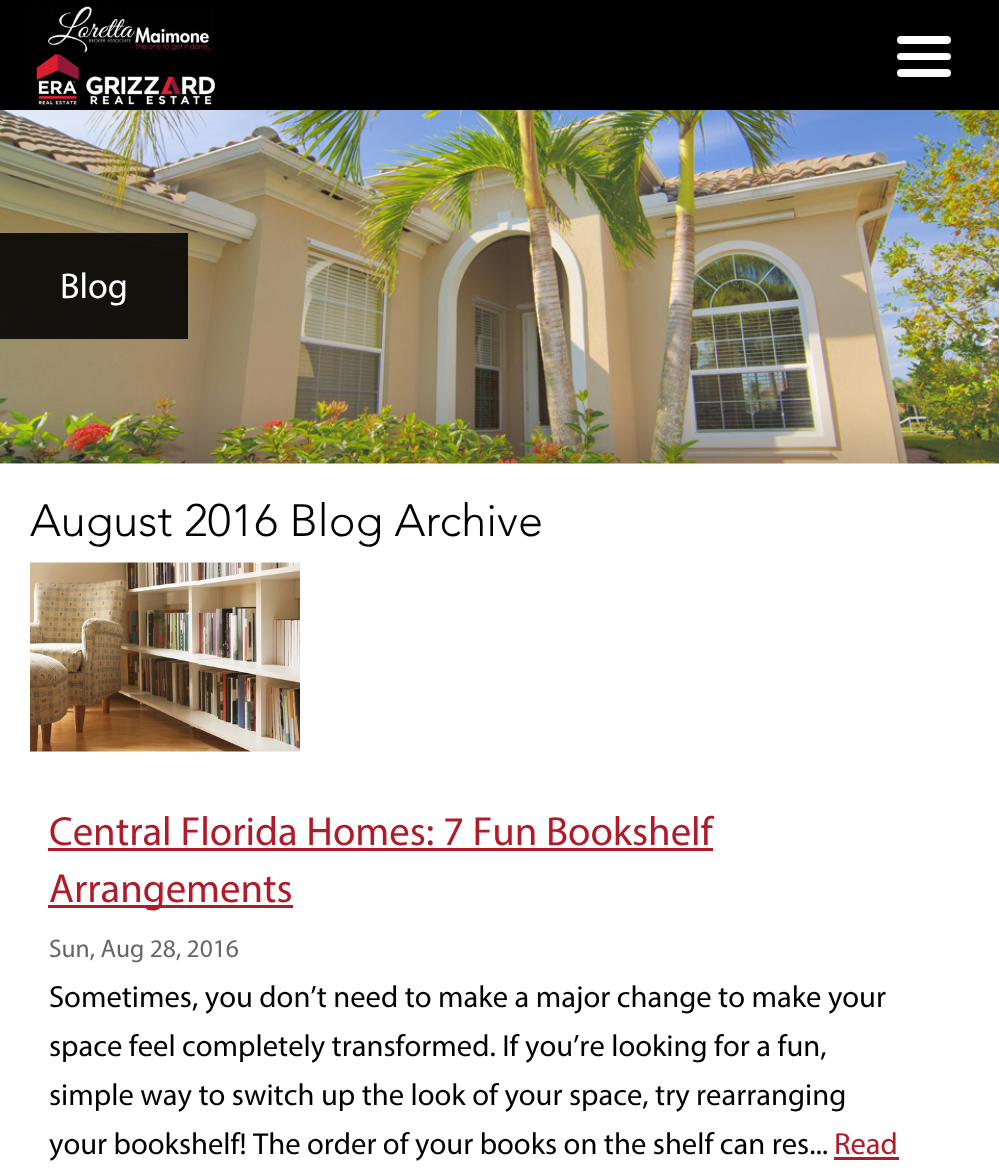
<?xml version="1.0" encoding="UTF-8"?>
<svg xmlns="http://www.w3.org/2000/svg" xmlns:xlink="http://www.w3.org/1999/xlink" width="999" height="1176">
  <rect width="100%" height="100%" fill="#ffffff" />
  <rect width="999" height="110" fill="#000000" />
  <image x="25" y="6" width="190" height="103" xlink:href="image1.png" />
  <rect x="897" y="36" width="54" height="8" rx="4" fill="#ffffff" />
  <rect x="897" y="53" width="54" height="7" rx="3.5" fill="#ffffff" />
  <rect x="897" y="69" width="54" height="8" rx="4" fill="#ffffff" />
  <image x="0" y="110" width="999" height="354" xlink:href="image2.png" />
  <rect y="233" width="188" height="106" fill="#000000" fill-opacity="0.87" />
  <image x="30" y="562" width="270" height="190" xlink:href="image3.png" />
  <rect x="48" y="848" width="665" height="3" fill="#b11b29" />
  <rect x="48" y="905" width="245" height="3" fill="#b11b29" />
  <rect x="834" y="1157" width="65" height="3" fill="#b11b29" />
  <text x="60" y="298" style="font-family: Myriad; font-size: 36px; fill: #ffffff">Blog</text>
  <text x="30" y="536" style="font-family: Avenir; font-size: 45px; font-weight: 300; fill: #000000">August 2016 Blog Archive</text>
  <text x="49" y="845" style="font-family: Myriad; font-size: 40.75px; fill: #b11b29">Central Florida Homes: 7 Fun Bookshelf</text>
  <text x="49" y="902" style="font-family: Myriad; font-size: 40.75px; fill: #b11b29">Arrangements</text>
  <text x="49" y="957" style="font-family: Myriad; font-size: 25.5px; fill: #666666">Sun, Aug 28, 2016</text>
  <text x="49" y="1007" style="font-family: Myriad; font-size: 30.6px; fill: #000000">Sometimes, you don’t need to make a major change to make your</text>
  <text x="49" y="1056" style="font-family: Myriad; font-size: 30.6px; fill: #000000">space feel completely transformed. If you’re looking for a fun,</text>
  <text x="49" y="1105" style="font-family: Myriad; font-size: 30.6px; fill: #000000">simple way to switch up the look of your space, try rearranging</text>
  <text x="49" y="1154" style="font-family: Myriad; font-size: 30.6px; fill: #000000">your bookshelf! The order of your books on the shelf can res...</text>
  <text x="834" y="1154" style="font-family: Myriad; font-size: 30.6px; fill: #b11b29">Read</text>
</svg>
